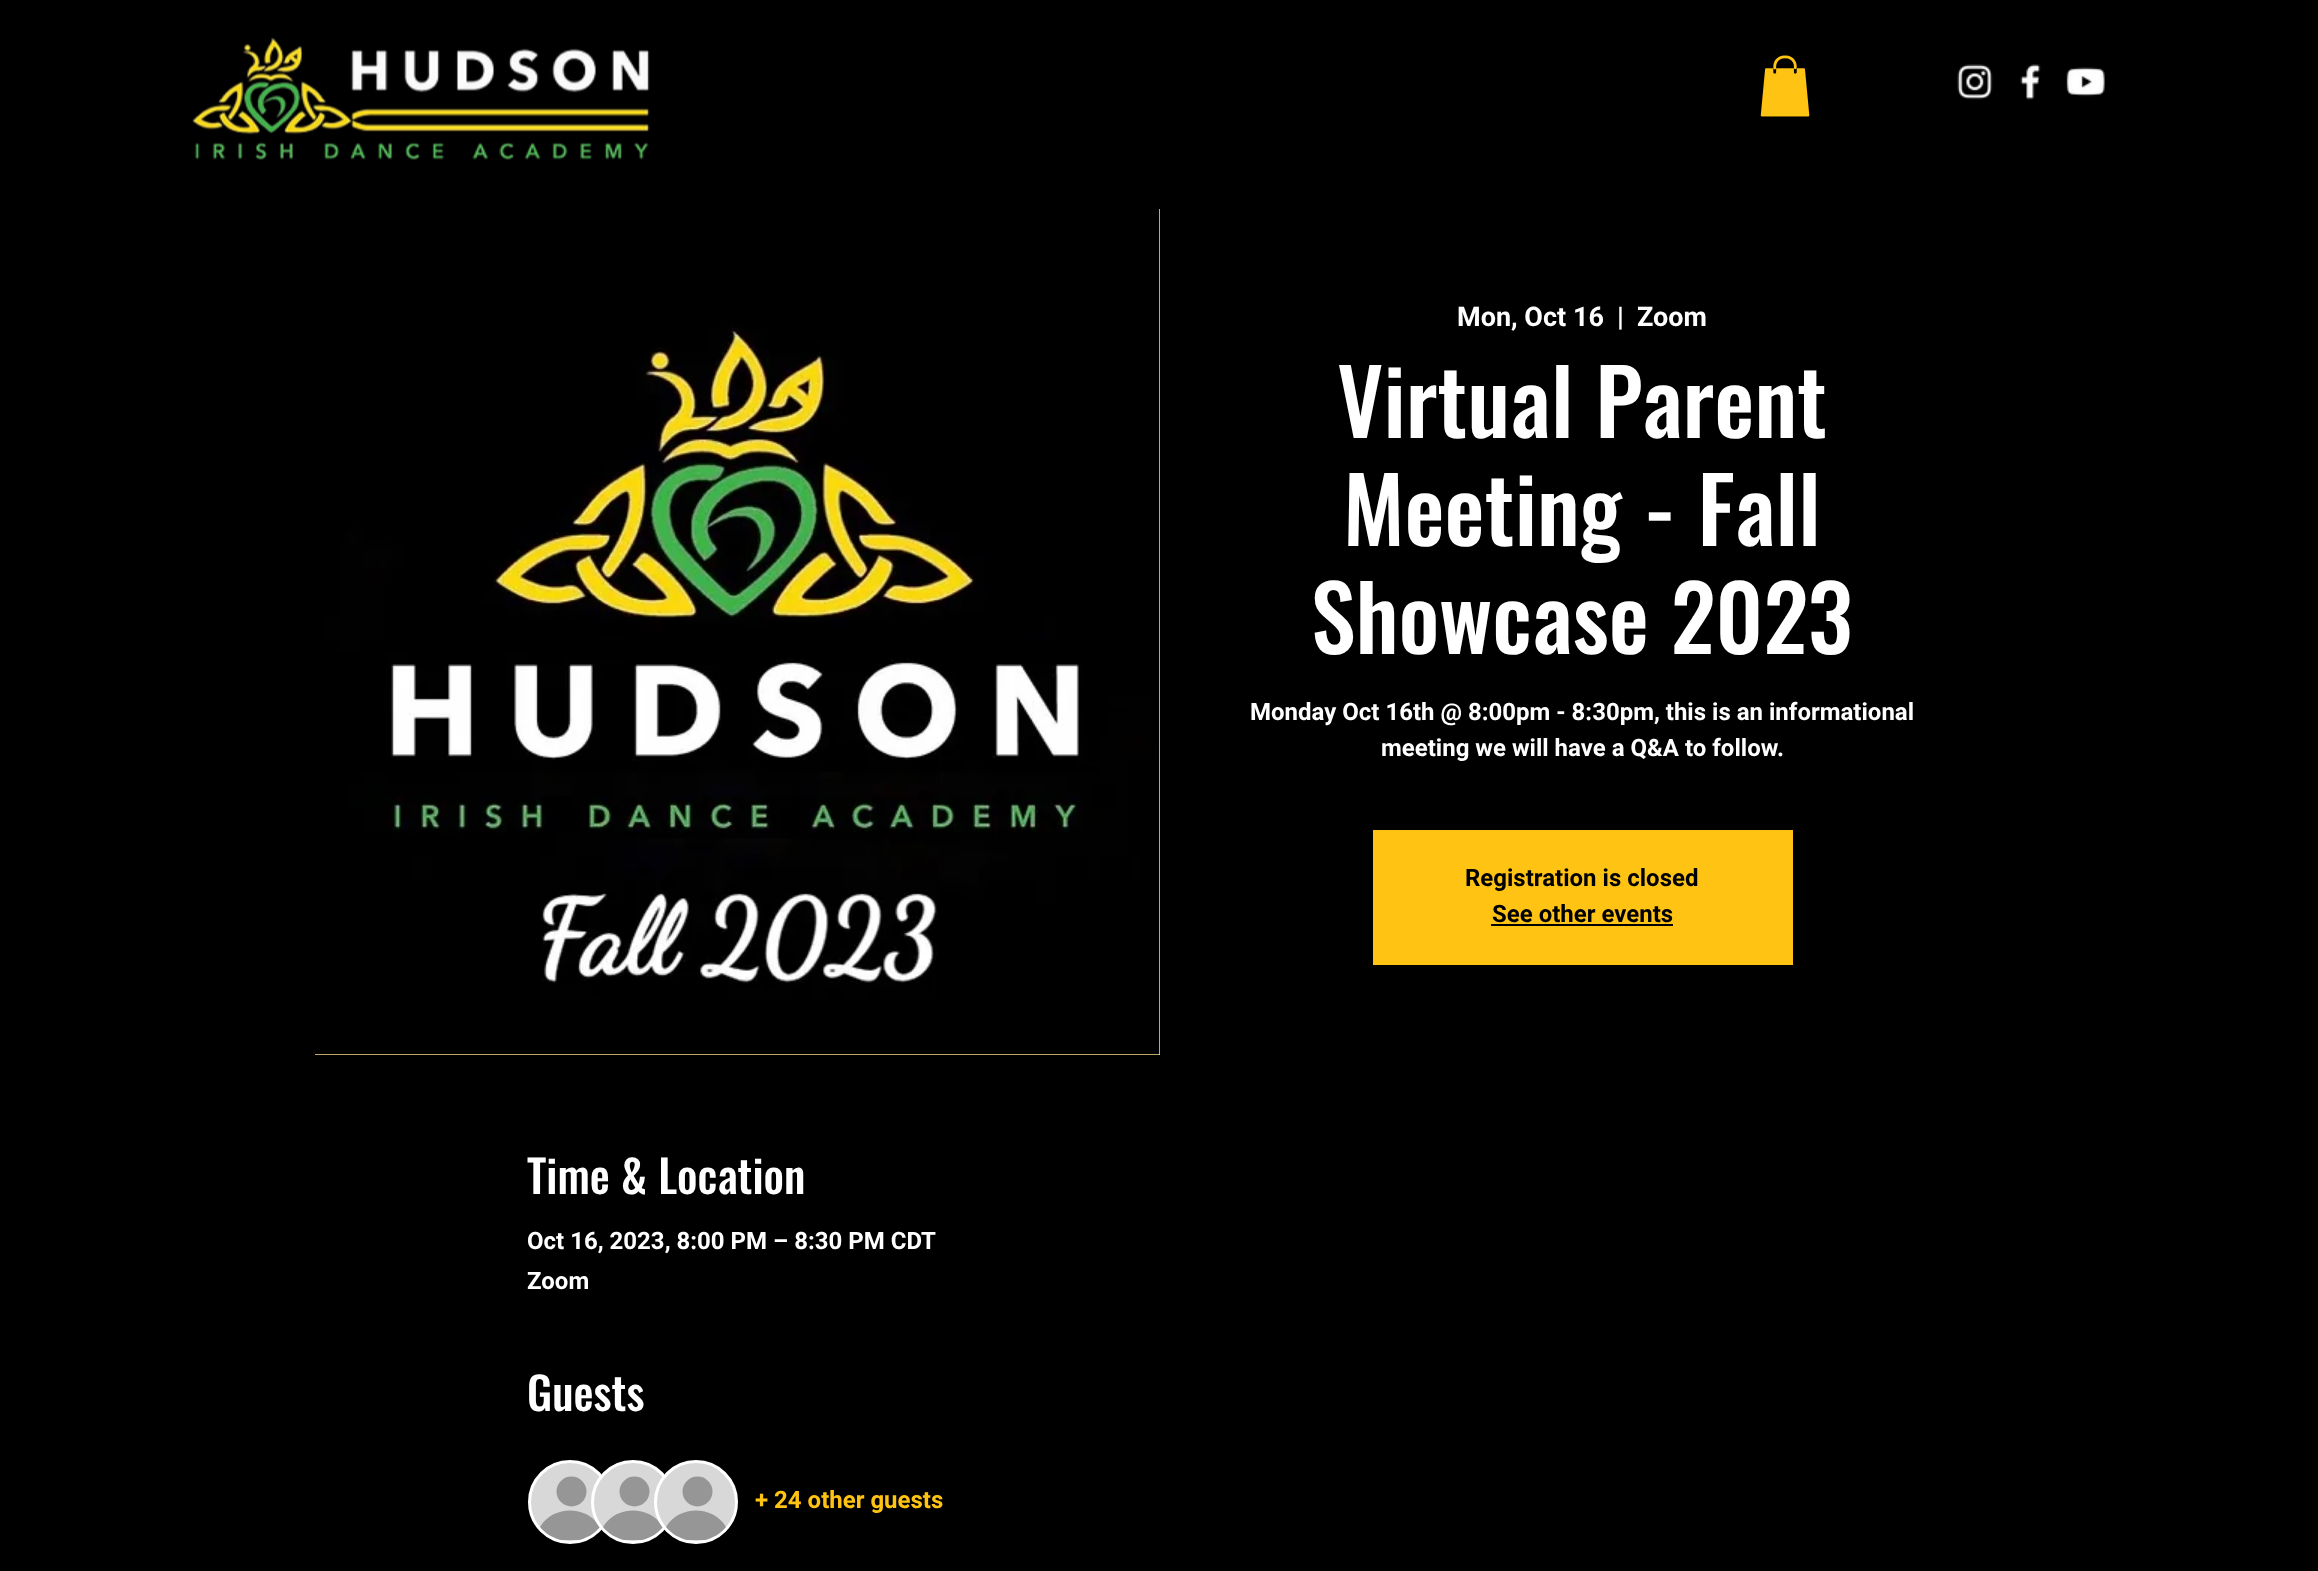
<?xml version="1.0" encoding="UTF-8"?>
<svg xmlns="http://www.w3.org/2000/svg" xmlns:xlink="http://www.w3.org/1999/xlink" width="2318" height="1571">
  <rect width="100%" height="100%" fill="#000000" />
  <image x="192" y="37" width="458" height="123" xlink:href="image1.png" />
  <image x="1760" y="55" width="50" height="62" xlink:href="image2.png" />
  <image x="1957" y="64" width="36" height="36" xlink:href="image3.png" />
  <image x="2020" y="64" width="21" height="36" xlink:href="image4.png" />
  <image x="2066" y="67" width="39" height="30" xlink:href="image5.png" />
  <rect x="315" y="209" width="845" height="846" fill="#ffe18a" />
  <image x="315" y="209" width="845" height="846" xlink:href="image6.png" />
  <rect x="1373" y="830" width="420" height="135" fill="#ffc314" />
  <rect x="1491" y="924" width="182" height="2" fill="#000000" />
  <circle cx="570" cy="1502" r="40.5" fill="#d8d8d8" stroke="#ffffff" stroke-width="3" />
  <circle cx="571.5" cy="1491.5" r="15" fill="#969696" />
  <path d="M 561 1540 c -8 -2 -15 -6 -21 -13 c 13 -22 47 -22 60 0 c -6 7 -13 11 -21 13 z" fill="#969696" />
  <circle cx="633" cy="1502" r="40.5" fill="#d8d8d8" stroke="#ffffff" stroke-width="3" />
  <circle cx="634.5" cy="1491.5" r="15" fill="#969696" />
  <path d="M 624 1540 c -8 -2 -15 -6 -21 -13 c 13 -22 47 -22 60 0 c -6 7 -13 11 -21 13 z" fill="#969696" />
  <circle cx="696" cy="1502" r="40.5" fill="#d8d8d8" stroke="#ffffff" stroke-width="3" />
  <circle cx="697.5" cy="1491.5" r="15" fill="#969696" />
  <path d="M 687 1540 c -8 -2 -15 -6 -21 -13 c 13 -22 47 -22 60 0 c -6 7 -13 11 -21 13 z" fill="#969696" />
  <text x="1457" y="326" style="font-family: Roboto; font-size: 27px; font-weight: bold; fill: #ffffff">Mon, Oct 16</text>
  <text x="1617" y="326" style="font-family: Roboto; font-size: 27px; font-weight: bold; fill: #ffffff">|</text>
  <text x="1637" y="326" style="font-family: Roboto; font-size: 27px; font-weight: bold; fill: #ffffff">Zoom</text>
  <text x="1337" y="438" style="font-family: Oswald; font-size: 90px; font-weight: 500; fill: #ffffff">Virtual Parent</text>
  <text x="1343" y="546" style="font-family: Oswald; font-size: 90px; font-weight: 500; fill: #ffffff">Meeting - Fall</text>
  <text x="1311" y="654" style="font-family: Oswald; font-size: 90px; font-weight: 500; fill: #ffffff">Showcase 2023</text>
  <text x="1250" y="720" style="font-family: Roboto; font-size: 24px; font-weight: bold; fill: #ffffff">Monday Oct 16th @ 8:00pm - 8:30pm, this is an informational</text>
  <text x="1381" y="756" style="font-family: Roboto; font-size: 24px; font-weight: bold; fill: #ffffff">meeting we will have a Q&amp;A to follow.</text>
  <text x="1465" y="886" style="font-family: Roboto; font-size: 24px; font-weight: bold; fill: #000000">Registration is closed</text>
  <text x="1492" y="922" style="font-family: Roboto; font-size: 24px; font-weight: bold; fill: #000000">See other events</text>
  <text x="527" y="1194" style="font-family: Oswald; font-size: 45px; font-weight: 500; fill: #ffffff">Time &amp; Location</text>
  <text x="527" y="1249" style="font-family: Roboto; font-size: 24px; font-weight: bold; fill: #ffffff">Oct 16, 2023, 8:00 PM – 8:30 PM CDT</text>
  <text x="527" y="1289" style="font-family: Roboto; font-size: 24px; font-weight: bold; fill: #ffffff">Zoom</text>
  <text x="527" y="1411" style="font-family: Oswald; font-size: 45px; font-weight: 500; fill: #ffffff">Guests</text>
  <text x="755" y="1508" style="font-family: Roboto; font-size: 24px; font-weight: bold; fill: #ffc314">+ 24 other guests</text>
</svg>
